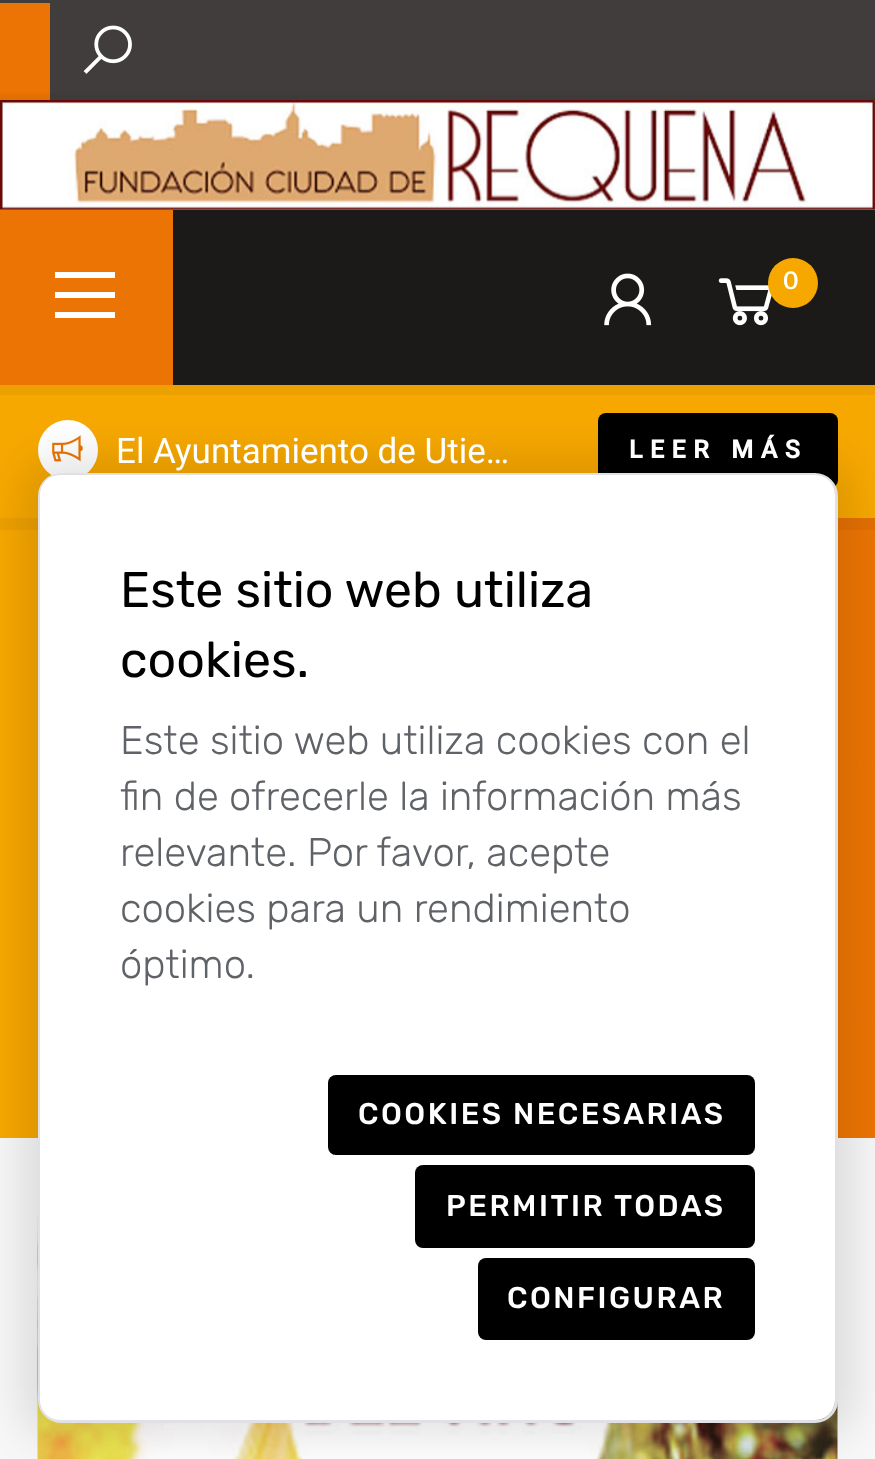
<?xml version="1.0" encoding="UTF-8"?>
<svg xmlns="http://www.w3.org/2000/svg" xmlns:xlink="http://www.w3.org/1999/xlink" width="875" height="1459">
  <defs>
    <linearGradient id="g1" gradientUnits="userSpaceOnUse" x1="438" y1="87" x2="438" y2="100"><stop offset="0" stop-color="#000000" stop-opacity="0" /><stop offset="1" stop-color="#000000" stop-opacity="0.05" /></linearGradient>
    <linearGradient id="g2" gradientUnits="userSpaceOnUse" x1="0" y1="828" x2="875" y2="828"><stop offset="0" stop-color="#f7a800" /><stop offset="1" stop-color="#ec7404" /></linearGradient>
    <linearGradient id="g3" gradientUnits="userSpaceOnUse" x1="0" y1="828" x2="875" y2="828"><stop offset="0" stop-color="#eda100" /><stop offset="1" stop-color="#e36f04" /></linearGradient>
  </defs>
  <rect width="100%" height="100%" fill="#f7f7f7" />
  <rect width="875" height="100" fill="#403d3c" />
  <rect y="3" width="50" height="97" fill="#ec7404" />
  <image x="83" y="25" width="49" height="49" xlink:href="image1.png" />
  <rect y="93" width="875" height="7" fill="url(#g1)" />
  <rect y="100" width="875" height="110" fill="#eeeeee" />
  <image x="0" y="100" width="875" height="110" xlink:href="image2.png" />
  <rect x="173" y="210" width="702" height="175" fill="#1c1919" />
  <rect y="210" width="173" height="175" fill="#ec7404" />
  <path d="M 55 272 h 60 v 6 h -60 z m 0 20 h 60 v 6 h -60 z m 0 20 h 60 v 6 h -60 z" fill="#ffffff" />
  <image x="604" y="273" width="48" height="53" xlink:href="image3.png" />
  <image x="718" y="278" width="54" height="48" xlink:href="image4.png" />
  <circle cx="793" cy="283" r="25" fill="#f7a800" />
  <rect y="395" width="875" height="123" fill="#f7a800" />
  <rect y="385" width="875" height="10" fill="#eda100" />
  <circle cx="68" cy="450" r="30" fill="#ffffff" />
  <image x="52" y="435" width="31" height="27" xlink:href="image5.png" />
  <rect x="598" y="413" width="240" height="75" rx="8" fill="#000000" />
  <rect y="530" width="875" height="608" fill="url(#g2)" />
  <rect y="518" width="875" height="12" fill="url(#g3)" />
  <image x="37" y="1217" width="801" height="242" xlink:href="image6.png" />
  <rect x="20" y="455" width="835" height="985" rx="40" fill="#000000" fill-opacity="0.1" filter="blur(20px)" />
  <rect x="39.5" y="474.5" width="797" height="947" rx="21.5" fill="none" stroke="#dfe1e5" stroke-width="3" />
  <rect x="40" y="475" width="795" height="945" rx="20" fill="#ffffff" />
  <rect x="328" y="1075" width="427" height="80" rx="8" fill="#000000" />
  <rect x="415" y="1165" width="340" height="83" rx="8" fill="#000000" />
  <rect x="478" y="1258" width="277" height="82" rx="8" fill="#000000" />
  <text x="783" y="289" style="font-family: Krub; font-size: 25px; font-weight: 600; letter-spacing: 2.5px; fill: #ffffff">0</text>
  <text x="116" y="463" style="font-family: Roboto; font-size: 35px; fill: #ffffff">El Ayuntamiento de Utie…</text>
  <text x="629" y="458" word-spacing="1" style="font-family: Roboto; font-size: 25px; font-weight: bold; letter-spacing: 7.5px; fill: #ffffff">LEER MÁS</text>
  <text x="120" y="607" style="font-family: Rubik; font-size: 50px; fill: #000000">Este sitio web utiliza</text>
  <text x="120" y="677" style="font-family: Rubik; font-size: 50px; fill: #000000">cookies.</text>
  <text x="120" y="754" style="font-family: Rubik; font-size: 40px; font-weight: 300; fill: #5f6368">Este sitio web utiliza cookies con el</text>
  <text x="120" y="810" style="font-family: Rubik; font-size: 40px; font-weight: 300; fill: #5f6368">fin de ofrecerle la información más</text>
  <text x="120" y="866" style="font-family: Rubik; font-size: 40px; font-weight: 300; fill: #5f6368">relevante. Por favor, acepte</text>
  <text x="120" y="922" style="font-family: Rubik; font-size: 40px; font-weight: 300; fill: #5f6368">cookies para un rendimiento</text>
  <text x="120" y="978" style="font-family: Rubik; font-size: 40px; font-weight: 300; fill: #5f6368">óptimo.</text>
  <text x="358" y="1124" style="font-family: Rubik; font-size: 30px; font-weight: 500; letter-spacing: 2.5px; fill: #ffffff">COOKIES NECESARIAS</text>
  <text x="446" y="1216" style="font-family: Rubik; font-size: 30px; font-weight: 500; letter-spacing: 2.5px; fill: #ffffff">PERMITIR TODAS</text>
  <text x="507" y="1308" style="font-family: Rubik; font-size: 30px; font-weight: 500; letter-spacing: 2.5px; fill: #ffffff">CONFIGURAR</text>
</svg>
